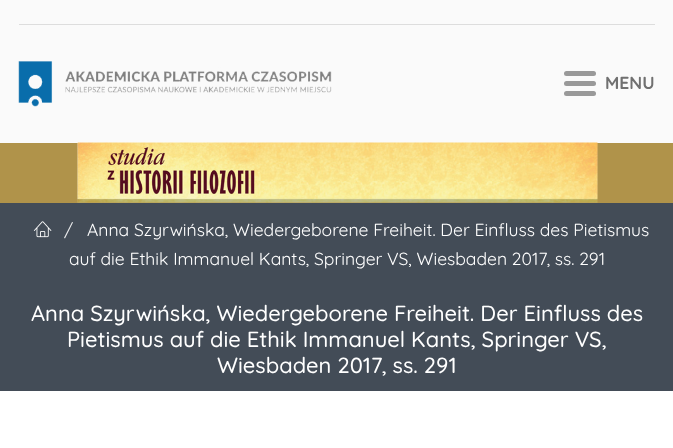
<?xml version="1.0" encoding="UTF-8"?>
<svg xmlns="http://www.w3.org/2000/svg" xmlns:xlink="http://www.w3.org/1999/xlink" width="673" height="448">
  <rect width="100%" height="100%" fill="#fafafa" />
  <rect x="19" y="24" width="636" height="1" fill="#dddddd" />
  <image x="18" y="61" width="314" height="46" xlink:href="image1.png" />
  <rect x="564" y="71" width="32" height="5" rx="2.5" fill="#999999" />
  <rect x="564" y="81" width="32" height="5" rx="2.5" fill="#999999" />
  <rect x="564" y="91" width="32" height="5" rx="2.5" fill="#999999" />
  <rect y="143" width="673" height="60" fill="#b0934a" />
  <image x="77" y="142" width="521" height="61" xlink:href="image2.png" />
  <rect y="203" width="673" height="188" fill="#434c57" />
  <image x="33" y="221" width="19" height="17" xlink:href="image3.png" />
  <rect y="391" width="673" height="57" fill="#ffffff" />
  <text x="605" y="89" style="font-family: Quicksand; font-size: 17.5px; font-weight: bold; fill: #707070">MENU</text>
  <text x="64" y="236" style="font-family: Quicksand; font-size: 17.5px; fill: #ecedee">/</text>
  <text x="87" y="236" style="font-family: Quicksand; font-size: 17.5px; fill: #ffffff">Anna Szyrwińska, Wiedergeborene Freiheit. Der Einfluss des Pietismus</text>
  <text x="69" y="265" style="font-family: Quicksand; font-size: 17.5px; fill: #ffffff">auf die Ethik Immanuel Kants, Springer VS, Wiesbaden 2017, ss. 291</text>
  <text x="31" y="321" style="font-family: Quicksand; font-size: 21.9px; font-weight: 500; fill: #ffffff">Anna Szyrwińska, Wiedergeborene Freiheit. Der Einfluss des</text>
  <text x="67" y="347" style="font-family: Quicksand; font-size: 21.9px; font-weight: 500; fill: #ffffff">Pietismus auf die Ethik Immanuel Kants, Springer VS,</text>
  <text x="217" y="373" style="font-family: Quicksand; font-size: 21.9px; font-weight: 500; fill: #ffffff">Wiesbaden 2017, ss. 291</text>
</svg>
